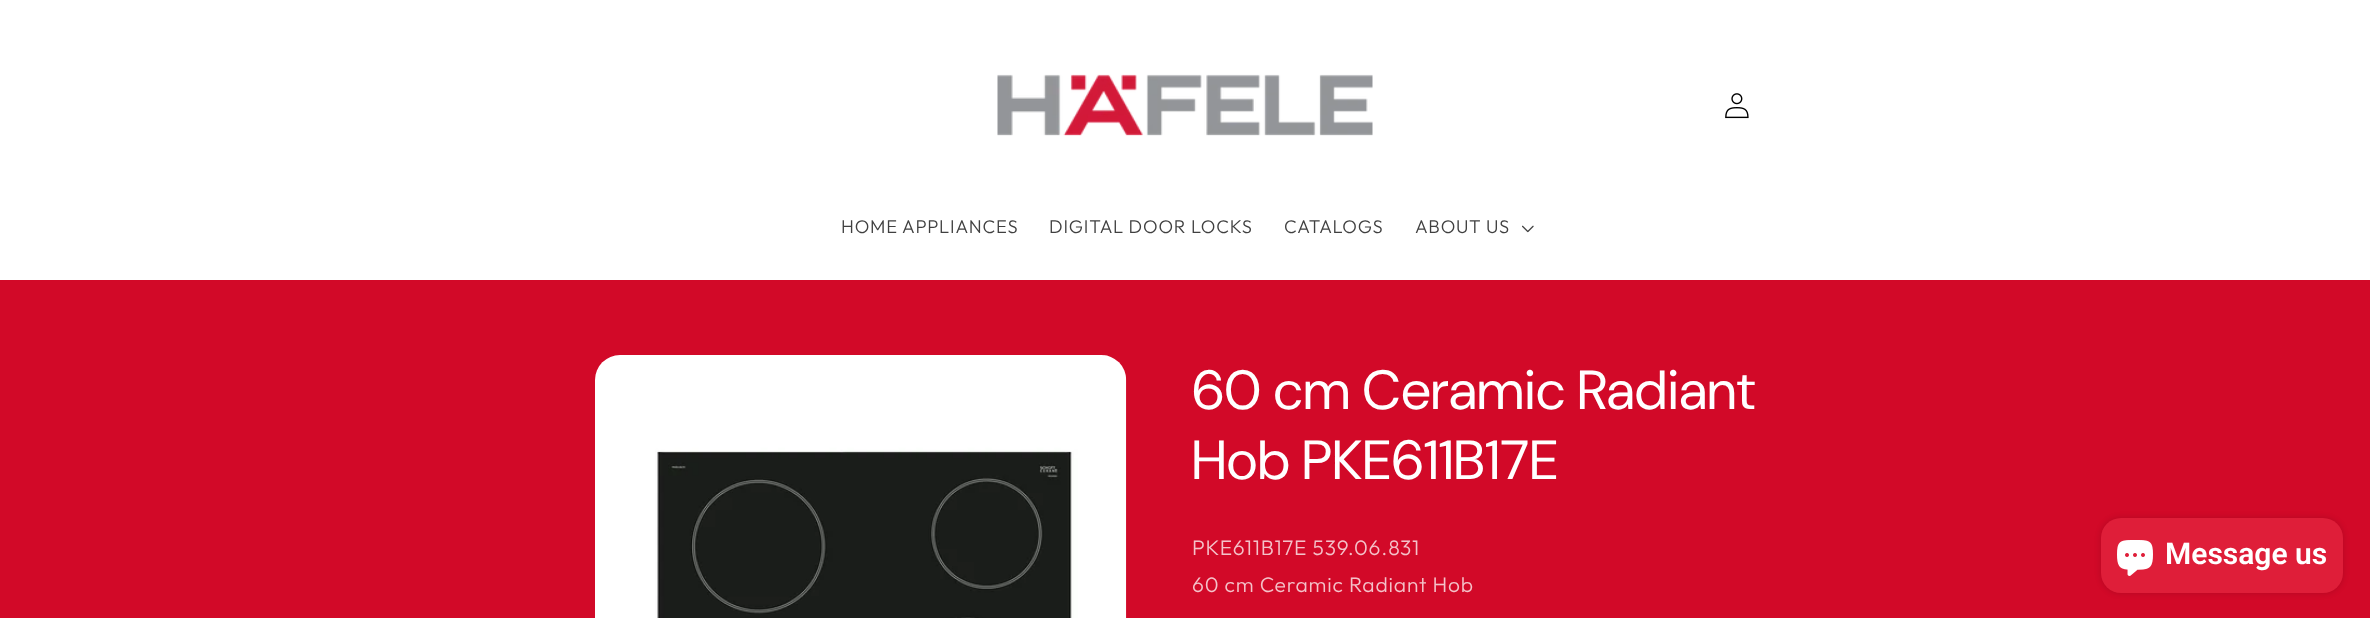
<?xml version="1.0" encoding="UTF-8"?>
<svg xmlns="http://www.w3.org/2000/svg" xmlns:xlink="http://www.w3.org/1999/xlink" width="2370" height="618">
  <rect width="100%" height="100%" fill="#d20928" />
  <rect width="2370" height="280" fill="#ffffff" />
  <image x="997" y="74" width="376" height="62" xlink:href="image1.png" />
  <image x="1725" y="93" width="24" height="26" xlink:href="image2.png" />
  <image x="1522" y="225" width="12" height="8" xlink:href="image3.png" />
  <image x="595" y="355" width="532" height="263" xlink:href="image4.png" />
  <rect x="2101" y="518" width="242" height="75" rx="20" fill="#000000" fill-opacity="0.15" filter="blur(3px)" />
  <rect x="2101" y="518" width="242" height="75" rx="20" fill="#df1e39" />
  <image x="2117" y="540" width="36" height="36" xlink:href="image5.png" />
  <text x="841" y="233" style="font-family: Outfit; font-size: 18.4px; font-weight: 300; letter-spacing: 0.8px; fill: #404040">HOME APPLIANCES</text>
  <text x="1049" y="233" style="font-family: Outfit; font-size: 18.4px; font-weight: 300; letter-spacing: 0.8px; fill: #404040">DIGITAL DOOR LOCKS</text>
  <text x="1284" y="233" style="font-family: Outfit; font-size: 18.4px; font-weight: 300; letter-spacing: 0.8px; fill: #404040">CATALOGS</text>
  <text x="1415" y="233" style="font-family: Outfit; font-size: 18.4px; font-weight: 300; letter-spacing: 0.8px; fill: #404040">ABOUT US</text>
  <text x="1192" y="409" style="font-family: DM Sans; font-size: 55px; letter-spacing: 0.8px; fill: #ffffff">60 cm Ceramic Radiant</text>
  <text x="1192" y="479" style="font-family: DM Sans; font-size: 55px; letter-spacing: 0.8px; fill: #ffffff">Hob PKE611B17E</text>
  <text x="1192" y="555" style="font-family: Outfit; font-size: 21px; font-weight: 300; letter-spacing: 0.8px; fill: #f4c2c9">PKE611B17E 539.06.831</text>
  <text x="1192" y="592" style="font-family: Outfit; font-size: 21px; font-weight: 300; letter-spacing: 0.8px; fill: #f4c2c9">60 cm Ceramic Radiant Hob</text>
  <text x="2165" y="564" style="font-family: Roboto; font-size: 30px; font-weight: 600; fill: #ffffff">Message us</text>
</svg>
